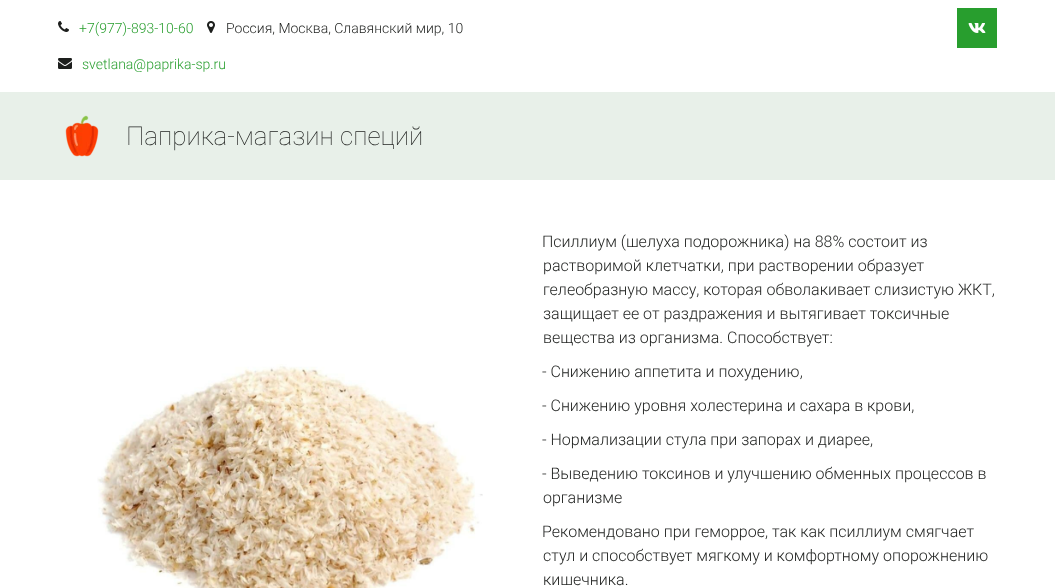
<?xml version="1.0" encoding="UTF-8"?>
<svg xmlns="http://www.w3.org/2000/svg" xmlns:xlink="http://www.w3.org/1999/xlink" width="1055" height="588">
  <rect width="100%" height="100%" fill="#ffffff" />
  <image x="58" y="21" width="11" height="11" xlink:href="image1.png" />
  <image x="207" y="21" width="8" height="12" xlink:href="image2.png" />
  <image x="58" y="58" width="14" height="11" xlink:href="image3.png" />
  <rect x="957" y="8" width="40" height="40" fill="#289e2e" />
  <image x="968" y="23" width="18" height="10" xlink:href="image4.png" />
  <rect y="92" width="1055" height="88" fill="#e8f0e9" />
  <image x="65" y="115" width="34" height="42" xlink:href="image5.png" />
  <image x="97" y="364" width="386" height="224" xlink:href="image6.png" />
  <text x="79" y="33" style="font-family: Roboto; font-size: 14px; font-weight: 300; fill: #289e2e">+7(977)-893-10-60</text>
  <text x="226" y="33" style="font-family: Roboto; font-size: 14px; font-weight: 300; fill: #1d1f1d">Россия, Москва, Славянский мир, 10</text>
  <text x="82" y="69" style="font-family: Roboto; font-size: 14px; font-weight: 300; fill: #289e2e">svetlana@paprika-sp.ru</text>
  <text x="126" y="145" style="font-family: Roboto; font-size: 26px; font-weight: 100; fill: #1d1f1d">Паприка-магазин специй</text>
  <text x="542" y="247" style="font-family: Roboto; font-size: 16px; font-weight: 300; fill: #1d1f1d">Псиллиум (шелуха подорожника) на 88% состоит из</text>
  <text x="543" y="271" style="font-family: Roboto; font-size: 16px; font-weight: 300; fill: #1d1f1d">растворимой клетчатки, при растворении образует</text>
  <text x="543" y="295" style="font-family: Roboto; font-size: 16px; font-weight: 300; fill: #1d1f1d">гелеобразную массу, которая обволакивает слизистую ЖКТ,</text>
  <text x="543" y="319" style="font-family: Roboto; font-size: 16px; font-weight: 300; fill: #1d1f1d">защищает ее от раздражения и вытягивает токсичные</text>
  <text x="543" y="343" style="font-family: Roboto; font-size: 16px; font-weight: 300; fill: #1d1f1d">вещества из организма. Способствует:</text>
  <text x="542" y="377" style="font-family: Roboto; font-size: 16px; font-weight: 300; fill: #1d1f1d">- Снижению аппетита и похудению,</text>
  <text x="542" y="411" style="font-family: Roboto; font-size: 16px; font-weight: 300; fill: #1d1f1d">- Снижению уровня холестерина и сахара в крови,</text>
  <text x="542" y="445" style="font-family: Roboto; font-size: 16px; font-weight: 300; fill: #1d1f1d">- Нормализации стула при запорах и диарее,</text>
  <text x="542" y="479" style="font-family: Roboto; font-size: 16px; font-weight: 300; fill: #1d1f1d">- Выведению токсинов и улучшению обменных процессов в</text>
  <text x="543" y="503" style="font-family: Roboto; font-size: 16px; font-weight: 300; fill: #1d1f1d">организме</text>
  <text x="542" y="537" style="font-family: Roboto; font-size: 16px; font-weight: 300; fill: #1d1f1d">Рекомендовано при геморрое, так как псиллиум смягчает</text>
  <text x="543" y="561" style="font-family: Roboto; font-size: 16px; font-weight: 300; fill: #1d1f1d">стул и способствует мягкому и комфортному опорожнению</text>
  <text x="543" y="585" style="font-family: Roboto; font-size: 16px; font-weight: 300; fill: #1d1f1d">кишечника.</text>
</svg>
